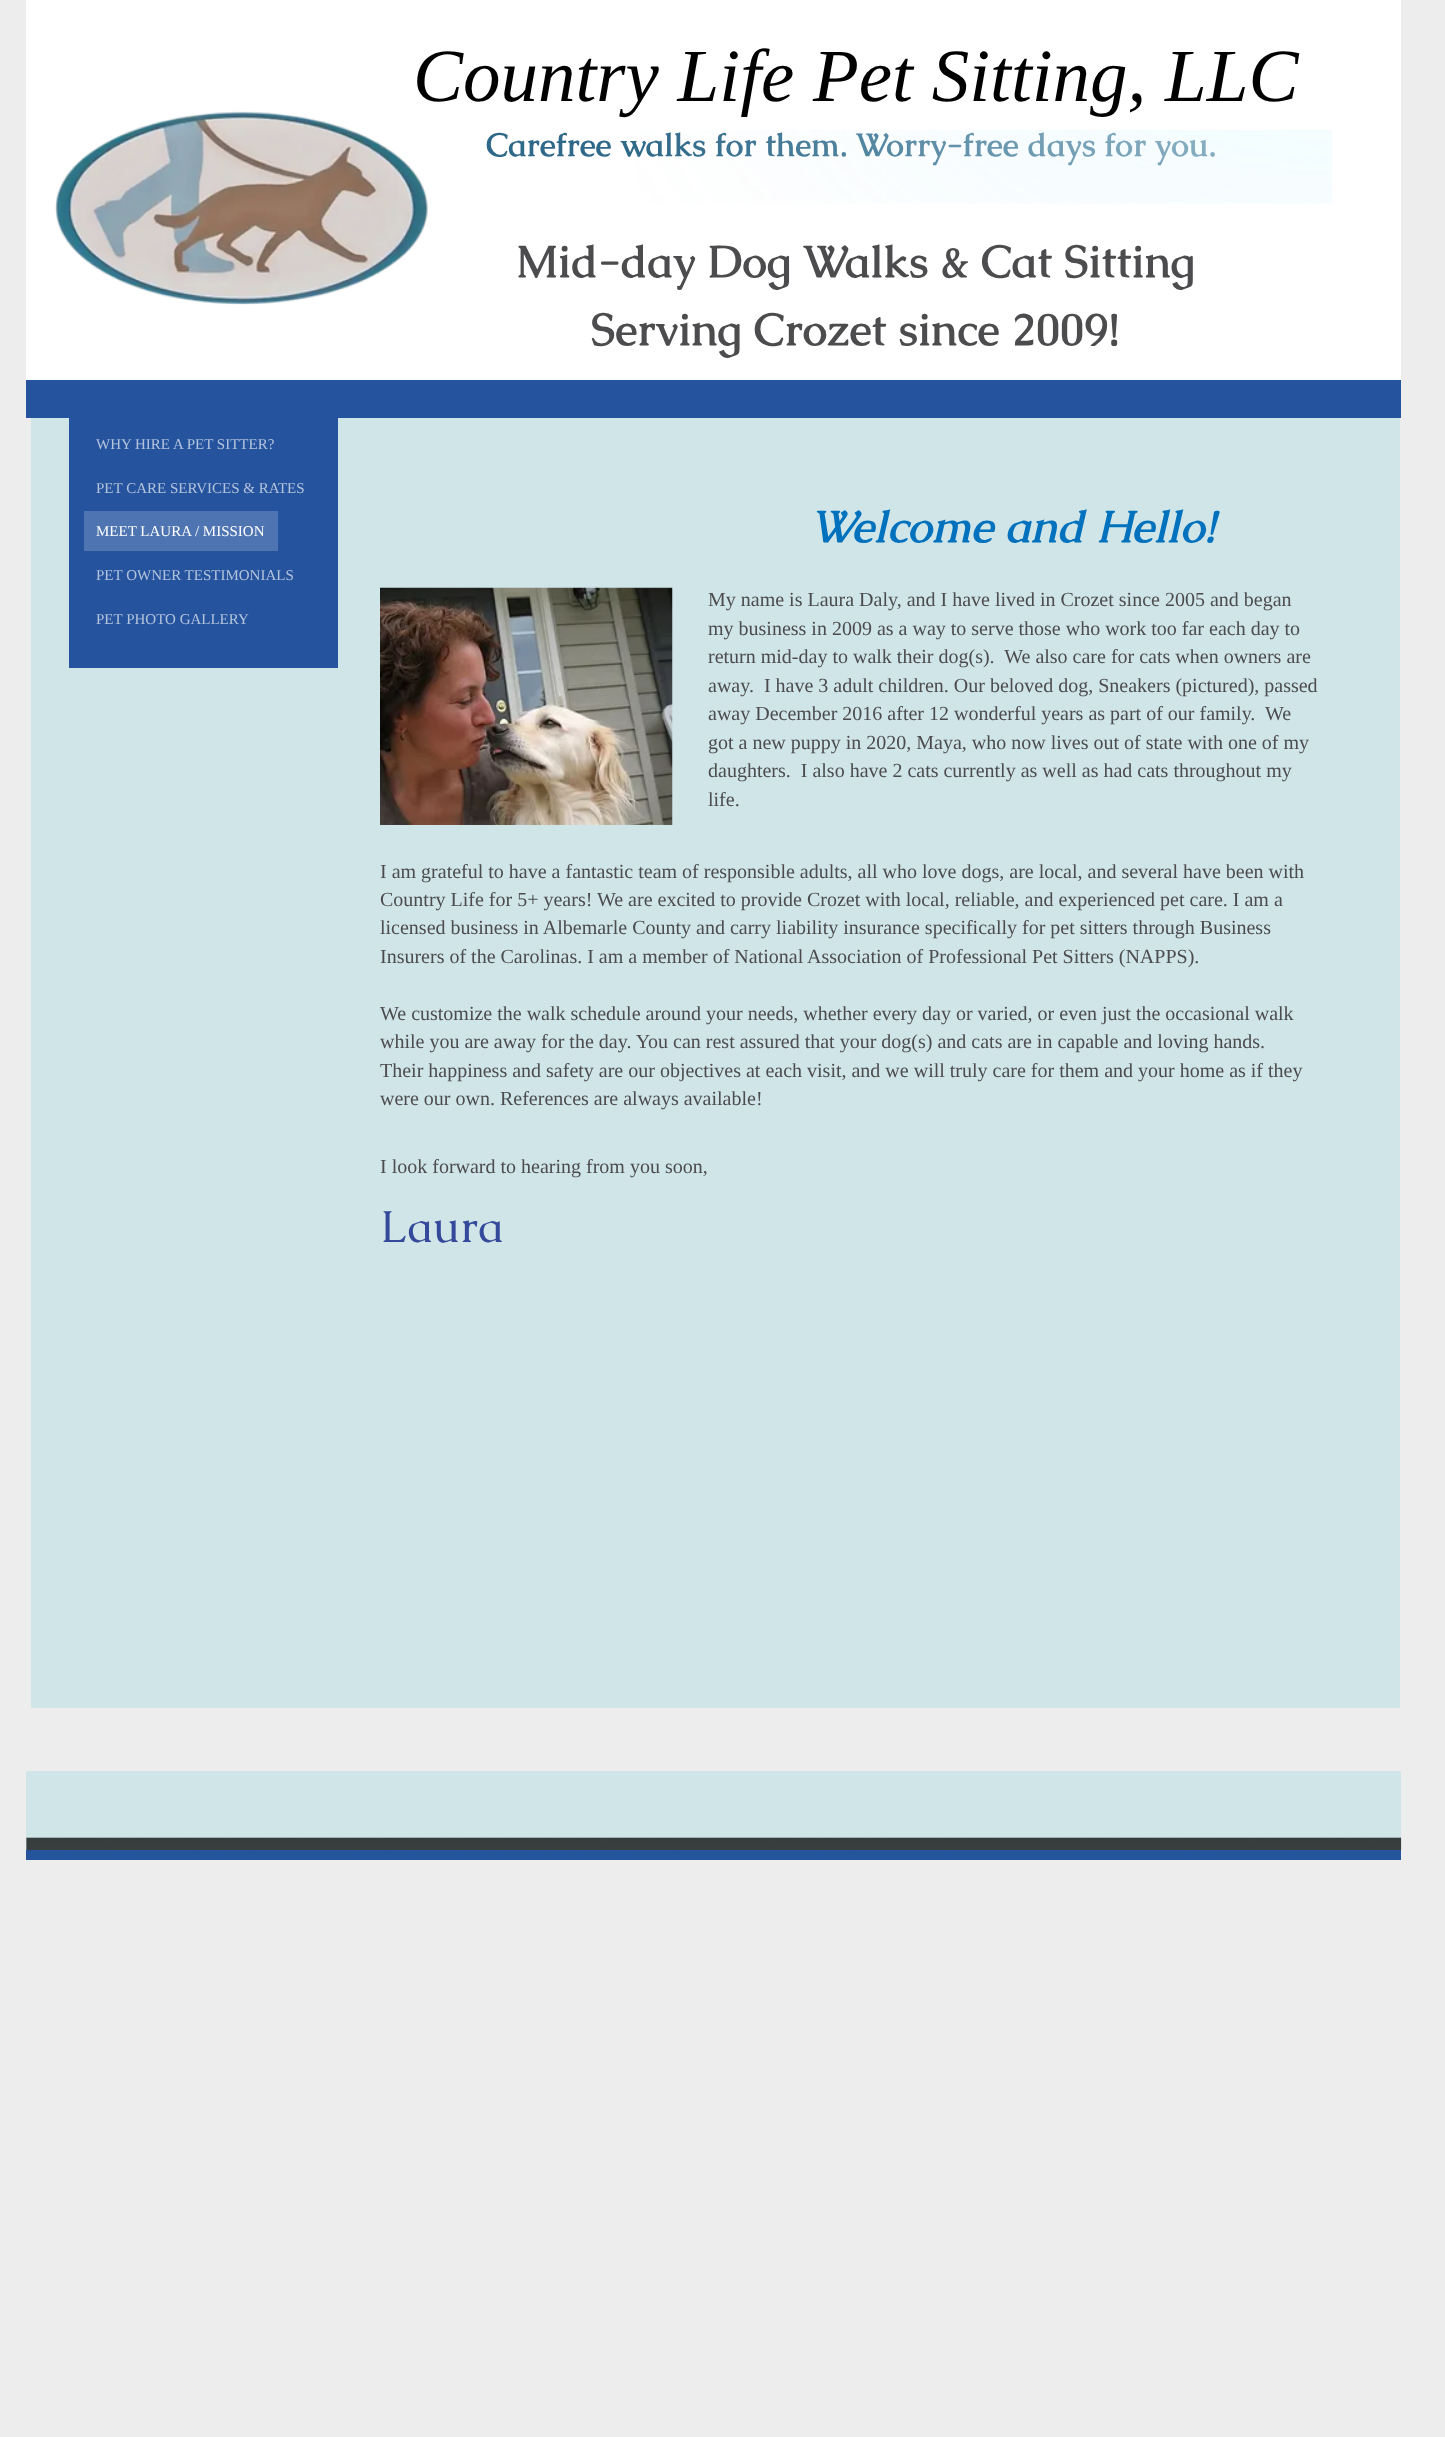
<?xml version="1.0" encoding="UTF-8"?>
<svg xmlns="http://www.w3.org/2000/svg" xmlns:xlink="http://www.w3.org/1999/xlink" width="1445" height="2437">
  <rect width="100%" height="100%" fill="#ededed" />
  <rect x="26" width="1375" height="380" fill="#ffffff" />
  <image x="55" y="111" width="373" height="194" xlink:href="image1.png" />
  <rect x="26" y="380" width="1375" height="38" fill="#25539e" />
  <rect x="31" y="418" width="1369" height="1290" fill="#d0e5e8" />
  <rect x="69" y="418" width="269" height="250" fill="#25539e" />
  <rect x="84" y="511" width="194" height="40" fill="#4e75b1" />
  <image x="380" y="587" width="293" height="238" xlink:href="image3.png" />
  <rect x="26" y="1771" width="1375" height="79" fill="#d0e5e8" />
  <image x="26" y="1837" width="1376" height="13" xlink:href="image4.png" />
  <image x="26" y="1837" width="1376" height="13" xlink:href="image5.png" />
  <rect x="26" y="1850" width="1375" height="10" fill="#24549c" />
  <text x="413" y="101" style="font-family: Liberation Serif; font-size: 75px; font-style: italic; fill: #000000">Country Life Pet Sitting, LLC</text>
  <text x="486" y="156" style="font-family: Caudex; font-size: 32.5px; font-weight: bold; fill: #2e6989">Carefree walks for them. Worry-free days for you.</text>
  <image x="636" y="130" width="696" height="74" xlink:href="image2.png" />
  <text x="516" y="277" style="font-family: Caudex; font-size: 45px; font-weight: bold; fill: #4c4c4e">Mid-day Dog Walks &amp; Cat Sitting</text>
  <text x="591" y="345" style="font-family: Caudex; font-size: 45px; font-weight: bold; fill: #4c4c4e">Serving Crozet since 2009!</text>
  <text x="96" y="449" style="font-family: Liberation Serif; font-size: 15px; fill: #b4c4dd">WHY HIRE A PET SITTER?</text>
  <text x="96" y="493" style="font-family: Liberation Serif; font-size: 15px; fill: #b4c4dd">PET CARE SERVICES &amp; RATES</text>
  <text x="96" y="536" style="font-family: Liberation Serif; font-size: 15px; fill: #ffffff">MEET LAURA / MISSION</text>
  <text x="96" y="580" style="font-family: Liberation Serif; font-size: 15px; fill: #b4c4dd">PET OWNER TESTIMONIALS</text>
  <text x="96" y="624" style="font-family: Liberation Serif; font-size: 15px; fill: #b4c4dd">PET PHOTO GALLERY</text>
  <text x="810" y="542" style="font-family: Caudex; font-size: 45px; font-weight: bold; font-style: italic; fill: #0071bc">Welcome and Hello!</text>
  <text x="708" y="606" style="font-family: Liberation Serif; font-size: 20px; fill: #4c4c4e">My name is Laura Daly, and I have lived in Crozet since 2005 and began</text>
  <text x="708" y="635" style="font-family: Liberation Serif; font-size: 20px; fill: #4c4c4e">my business in 2009 as a way to serve those who work too far each day to</text>
  <text x="708" y="663" style="font-family: Liberation Serif; font-size: 20px; fill: #4c4c4e" xml:space="preserve">return mid-day to walk their dog(s).  We also care for cats when owners are</text>
  <text x="708" y="692" style="font-family: Liberation Serif; font-size: 20px; fill: #4c4c4e" xml:space="preserve">away.  I have 3 adult children. Our beloved dog, Sneakers (pictured), passed</text>
  <text x="708" y="720" style="font-family: Liberation Serif; font-size: 20px; fill: #4c4c4e" xml:space="preserve">away December 2016 after 12 wonderful years as part of our family.  We</text>
  <text x="708" y="749" style="font-family: Liberation Serif; font-size: 20px; fill: #4c4c4e">got a new puppy in 2020, Maya, who now lives out of state with one of my</text>
  <text x="708" y="777" style="font-family: Liberation Serif; font-size: 20px; fill: #4c4c4e" xml:space="preserve">daughters.  I also have 2 cats currently as well as had cats throughout my</text>
  <text x="708" y="806" style="font-family: Liberation Serif; font-size: 20px; fill: #4c4c4e">life.</text>
  <text x="380" y="878" style="font-family: Liberation Serif; font-size: 20px; fill: #4c4c4e">I am grateful to have a fantastic team of responsible adults, all who love dogs, are local, and several have been with</text>
  <text x="380" y="906" style="font-family: Liberation Serif; font-size: 20px; fill: #4c4c4e">Country Life for 5+ years! We are excited to provide Crozet with local, reliable, and experienced pet care. I am a</text>
  <text x="380" y="934" style="font-family: Liberation Serif; font-size: 20px; fill: #4c4c4e">licensed business in Albemarle County and carry liability insurance specifically for pet sitters through Business</text>
  <text x="380" y="963" style="font-family: Liberation Serif; font-size: 20px; fill: #4c4c4e">Insurers of the Carolinas. I am a member of National Association of Professional Pet Sitters (NAPPS).</text>
  <text x="380" y="1020" style="font-family: Liberation Serif; font-size: 20px; fill: #4c4c4e">We customize the walk schedule around your needs, whether every day or varied, or even just the occasional walk</text>
  <text x="380" y="1048" style="font-family: Liberation Serif; font-size: 20px; fill: #4c4c4e">while you are away for the day. You can rest assured that your dog(s) and cats are in capable and loving hands.</text>
  <text x="380" y="1077" style="font-family: Liberation Serif; font-size: 20px; fill: #4c4c4e">Their happiness and safety are our objectives at each visit, and we will truly care for them and your home as if they</text>
  <text x="380" y="1105" style="font-family: Liberation Serif; font-size: 20px; fill: #4c4c4e">were our own. References are always available!</text>
  <text x="380" y="1173" style="font-family: Liberation Serif; font-size: 20px; fill: #4c4c4e">I look forward to hearing from you soon,</text>
  <text x="380" y="1242" style="font-family: Caudex; font-size: 45px; fill: #34499a">Laura</text>
</svg>
